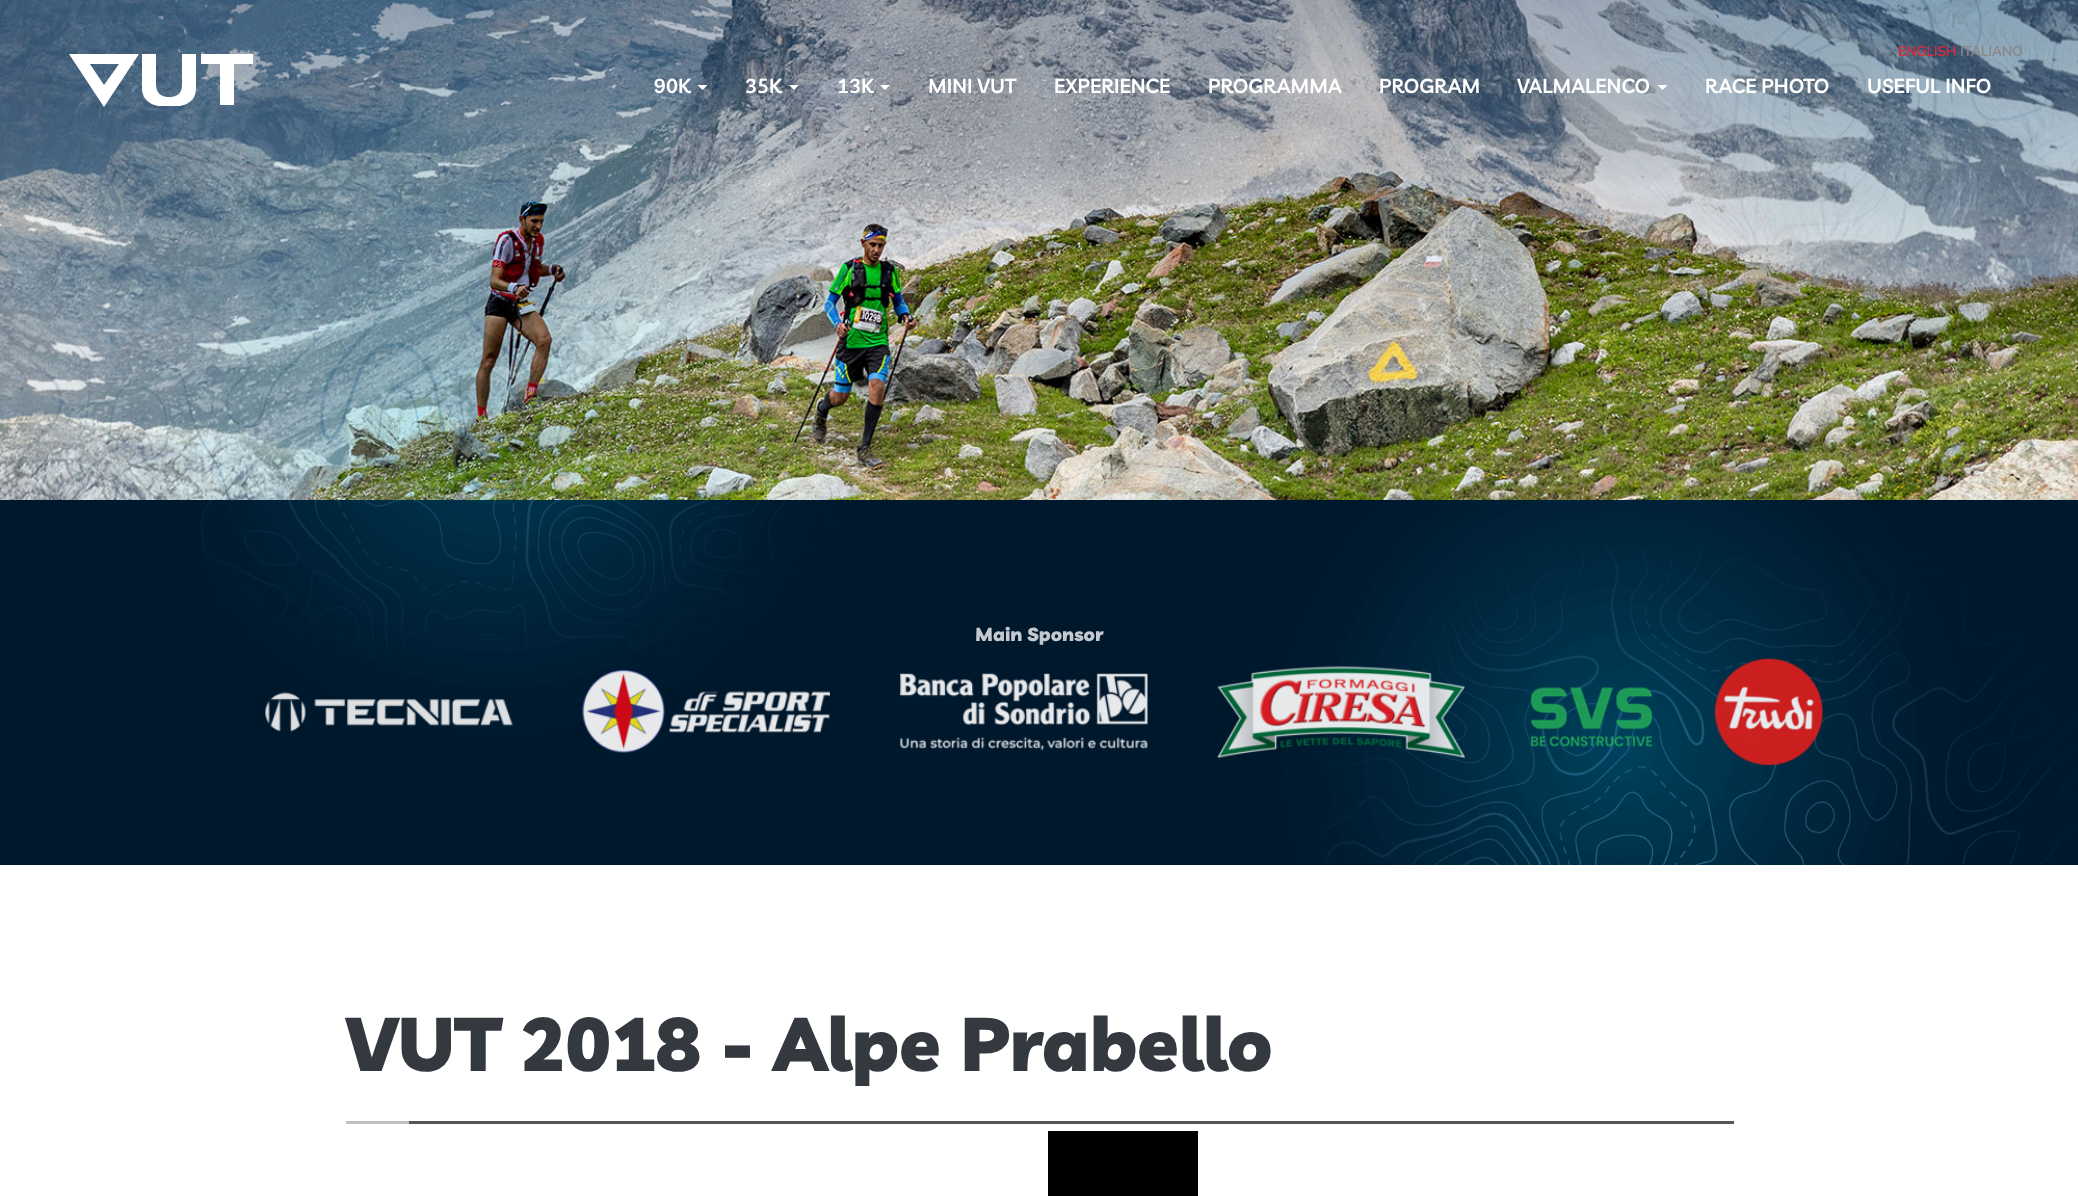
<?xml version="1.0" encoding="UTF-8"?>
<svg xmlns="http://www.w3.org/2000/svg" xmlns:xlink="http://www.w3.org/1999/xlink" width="2078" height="1196">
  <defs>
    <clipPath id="clip1"><rect x="69" y="54" width="185" height="52" /></clipPath>
  </defs>
  <rect width="100%" height="100%" fill="#ffffff" />
  <image x="0" y="0" width="2078" height="500" xlink:href="image1.png" />
  <path d="M 220 105 h 14 v -41 h 19 v -10 h -52 v 10 h 19 z" fill="#ffffff" />
  <g clip-path="url(#clip1)">
    <path d="M 142 87 c 0 6 1 20 27 20 c 27 0 27 -14 27 -20 v -33 h -14 v 29 c 0 5 0 14 -13 14 c -12 0 -13 -9 -13 -14 v -29 h -14 z" fill="#ffffff" />
  </g>
  <path d="M 137 54 h -68 l 35 53 l 35 -53 z m -18 10 l -15 21 l -14 -21 z" fill="#ffffff" />
  <path d="M 697.5 85 h 10 l -5 5 z" fill="#ffffff" />
  <path d="M 789 85 h 10 l -5 5 z" fill="#ffffff" />
  <path d="M 880 85 h 10 l -5 5 z" fill="#ffffff" />
  <path d="M 1657.5 85 h 10 l -5 5 z" fill="#ffffff" />
  <rect y="500" width="2078" height="365" fill="#00182c" />
  <image x="200" y="500" width="1878" height="365" xlink:href="image2.png" />
  <image x="265" y="692" width="248" height="40" xlink:href="image3.png" />
  <image x="582" y="670" width="248" height="83" xlink:href="image4.png" />
  <image x="900" y="673" width="248" height="77" xlink:href="image5.png" />
  <image x="1217" y="666" width="248" height="92" xlink:href="image6.png" />
  <image x="1531" y="687" width="122" height="60" xlink:href="image7.png" />
  <image x="1715" y="658" width="108" height="107" xlink:href="image8.png" />
  <rect x="409" y="1121" width="1325" height="3" fill="#555555" />
  <rect x="346" y="1121" width="63" height="3" fill="#bfbfbf" />
  <rect x="1048" y="1131" width="150" height="65" fill="#000000" />
  <text x="1898" y="56" style="font-family: Nunito; font-size: 13.75px; font-weight: bold; fill: #dd2a39">ENGLISH</text>
  <text x="1960" y="56" style="font-family: Nunito; font-size: 13.75px; font-weight: bold; fill: #888888">ITALIANO</text>
  <text x="654" y="93" style="font-family: Livvic; font-size: 20px; font-weight: 600; fill: #ffffff">90K</text>
  <text x="745" y="93" style="font-family: Livvic; font-size: 20px; font-weight: 600; fill: #ffffff">35K</text>
  <text x="837" y="93" style="font-family: Livvic; font-size: 20px; font-weight: 600; fill: #ffffff">13K</text>
  <text x="928" y="93" style="font-family: Livvic; font-size: 20px; font-weight: 600; fill: #ffffff">MINI VUT</text>
  <text x="1054" y="93" style="font-family: Livvic; font-size: 20px; font-weight: 600; fill: #ffffff">EXPERIENCE</text>
  <text x="1208" y="93" style="font-family: Livvic; font-size: 20px; font-weight: 600; fill: #ffffff">PROGRAMMA</text>
  <text x="1379" y="93" style="font-family: Livvic; font-size: 20px; font-weight: 600; fill: #ffffff">PROGRAM</text>
  <text x="1517" y="93" style="font-family: Livvic; font-size: 20px; font-weight: 600; fill: #ffffff">VALMALENCO</text>
  <text x="1705" y="93" style="font-family: Livvic; font-size: 20px; font-weight: 600; fill: #ffffff">RACE PHOTO</text>
  <text x="1867" y="93" style="font-family: Livvic; font-size: 20px; font-weight: 600; fill: #ffffff">USEFUL INFO</text>
  <text x="975" y="641" style="font-family: Livvic; font-size: 18.75px; font-weight: 900; fill: #c3c9ce">Main Sponsor</text>
  <text x="346" y="1071" style="font-family: Livvic; font-size: 75px; font-weight: 900; fill: #33393e">VUT 2018 - Alpe Prabello</text>
</svg>
